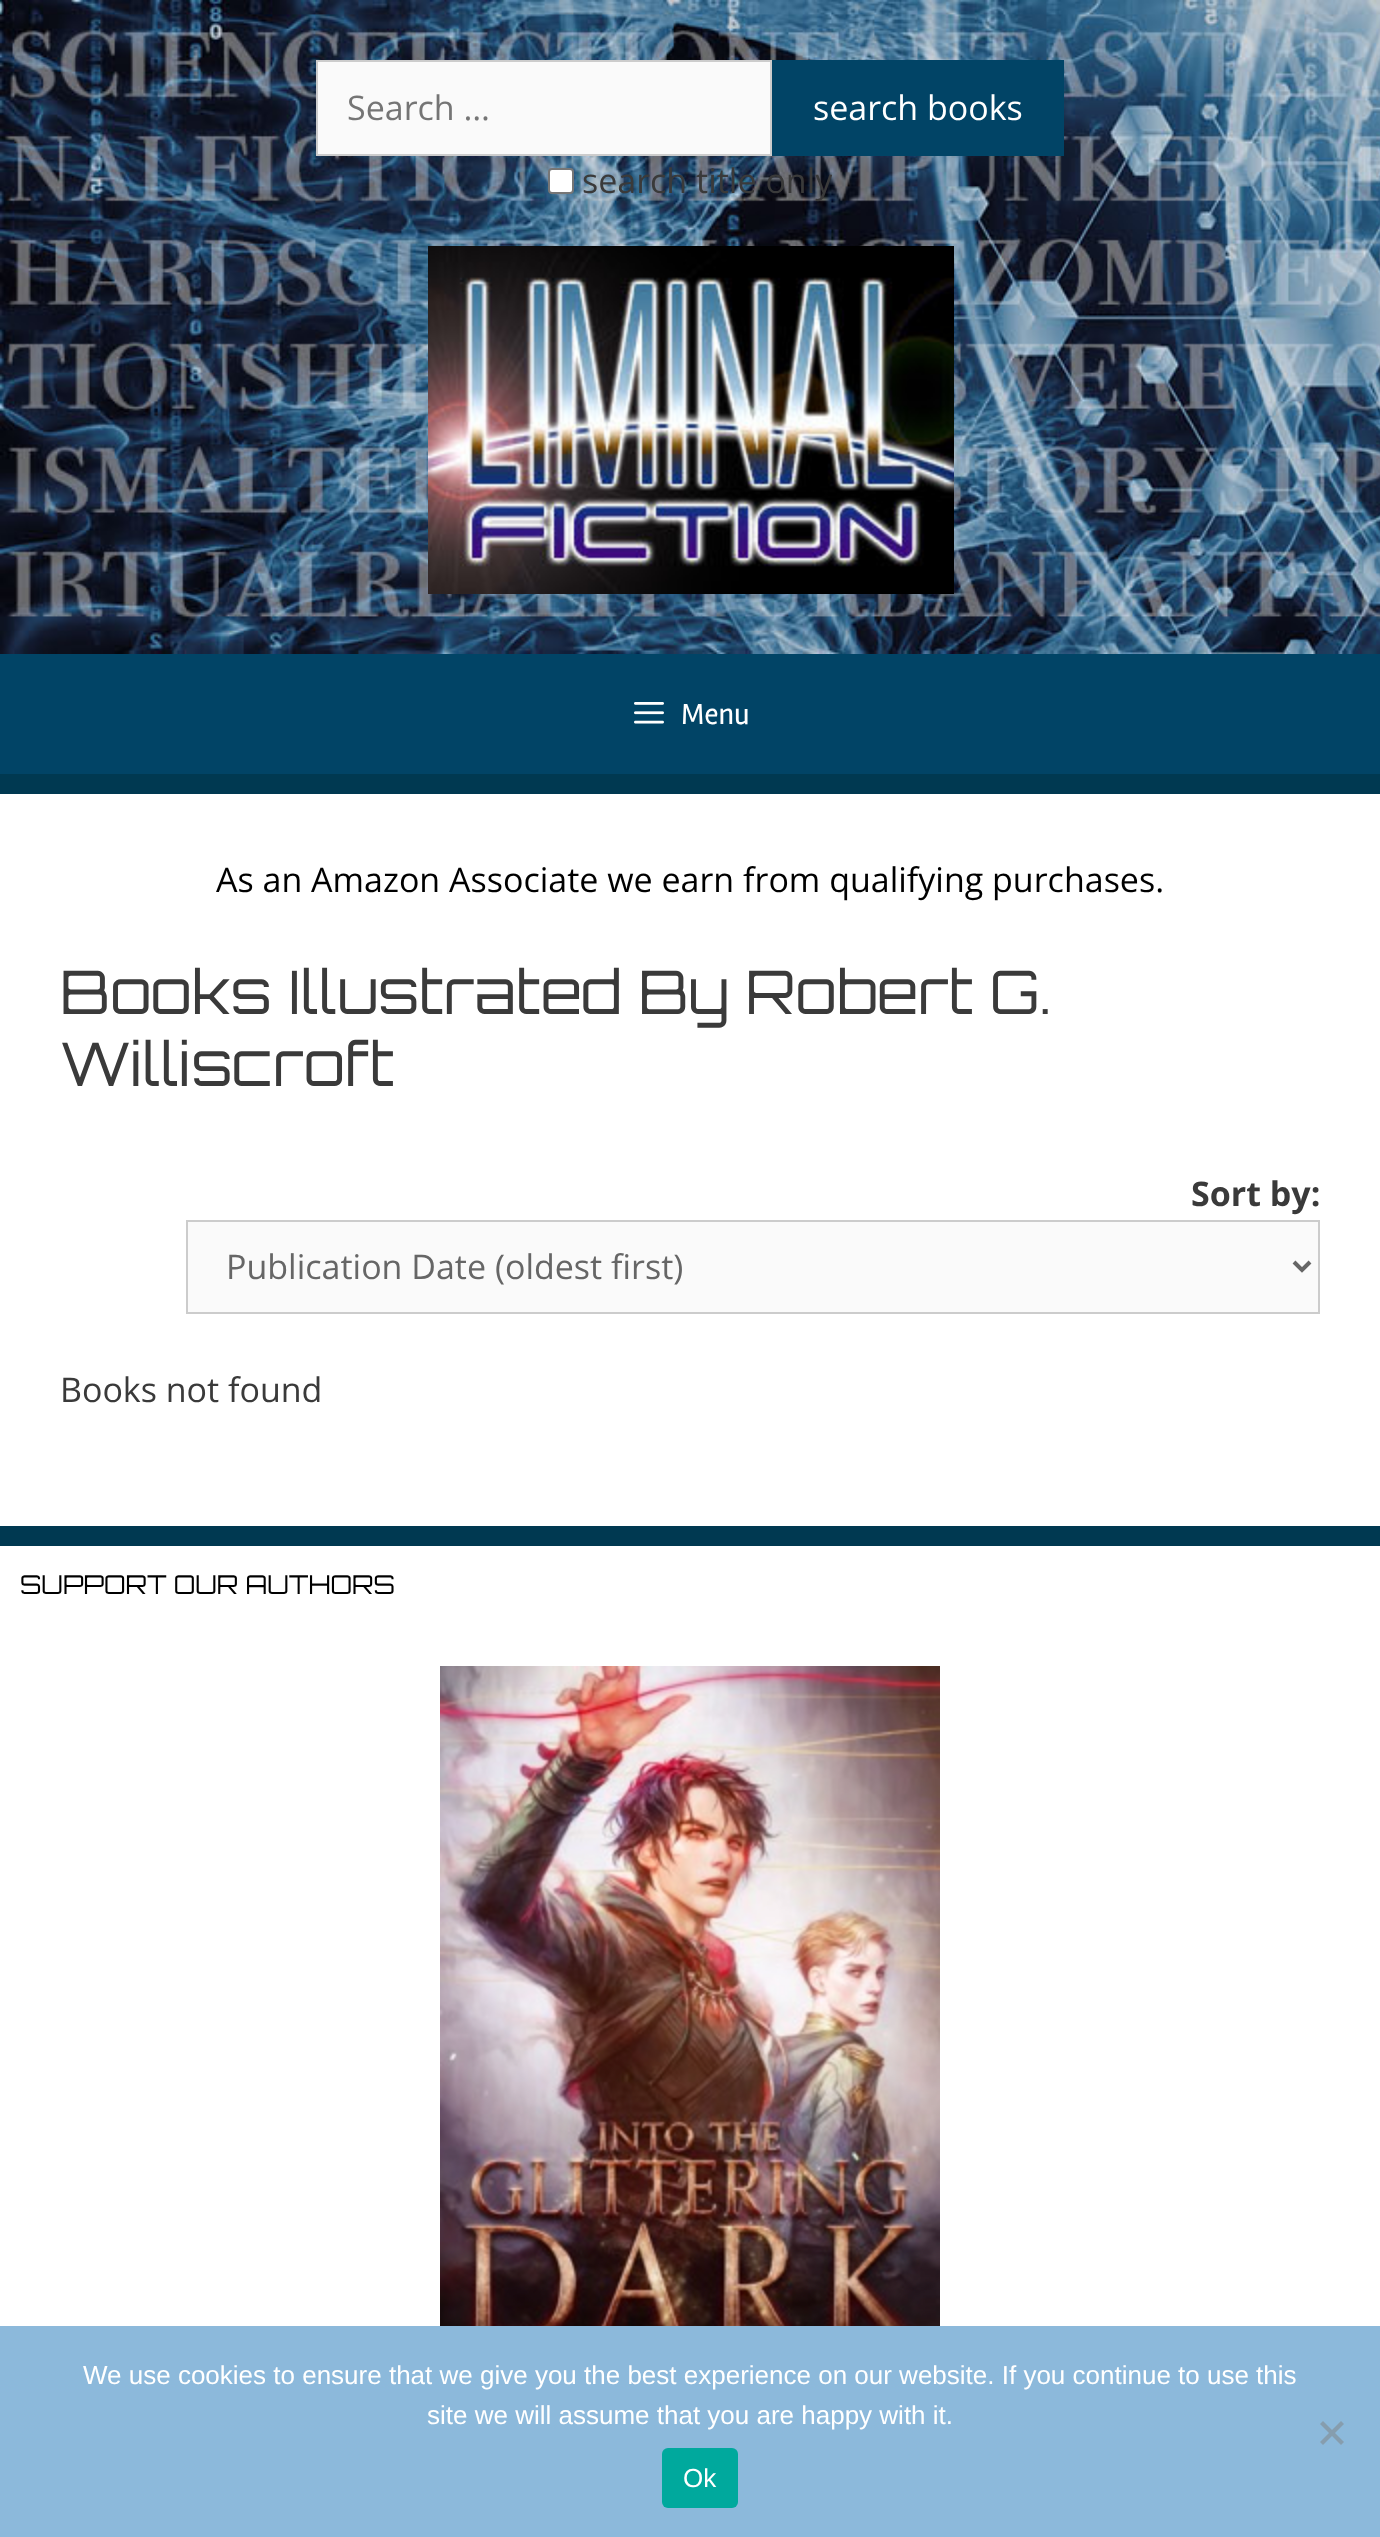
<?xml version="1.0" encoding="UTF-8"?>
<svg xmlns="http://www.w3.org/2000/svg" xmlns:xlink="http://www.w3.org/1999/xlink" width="1380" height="2537">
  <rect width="100%" height="100%" fill="#003951" />
  <image x="0" y="0" width="1380" height="654" xlink:href="image1.png" />
  <rect x="317" y="61" width="454" height="94" fill="#fafafa" stroke="#cccccc" stroke-width="2" />
  <rect x="772" y="60" width="292" height="96" fill="#014466" />
  <rect x="549" y="169" width="24" height="24" rx="3" fill="#ffffff" stroke="#767676" stroke-width="2" />
  <image x="428" y="246" width="526" height="348" xlink:href="image2.png" />
  <rect y="654" width="1380" height="120" fill="#014466" />
  <image x="634" y="702" width="30" height="22" xlink:href="image3.png" />
  <rect y="794" width="1380" height="732" fill="#ffffff" />
  <rect x="187" y="1221" width="1132" height="92" fill="#fafafa" stroke="#cccccc" stroke-width="2" />
  <path d="M 1294 1262 l 8 8 l 8 -8" fill="none" stroke="#666666" stroke-width="4" />
  <rect y="1546" width="1380" height="780" fill="#ffffff" />
  <image x="440" y="1666" width="500" height="660" xlink:href="image4.png" />
  <rect y="2326" width="1380" height="211" fill="#8cb9db" />
  <path d="M 1341 2421 l 3 3 l -21 21 l -3 -3 z" fill="#869dae" />
  <path d="M 1320 2424 l 3 -3 l 21 21 l -3 3 z" fill="#869dae" />
  <rect x="662" y="2448" width="76" height="60" rx="6" fill="#00a99d" />
  <text x="347" y="120" style="font-family: Open Sans; font-size: 34px; fill: #757575">Search …</text>
  <text x="813" y="120" style="font-family: Open Sans; font-size: 34px; fill: #ffffff">search books</text>
  <text x="582" y="193" style="font-family: Open Sans; font-size: 34px; fill: #3a3a3a">search title only</text>
  <text x="681" y="724" style="font-family: Rambla; font-size: 30px; fill: #ffffff">Menu</text>
  <text x="216" y="892" style="font-family: Open Sans; font-size: 34px; fill: #000000">As an Amazon Associate we earn from qualifying purchases.</text>
  <text x="60" y="1014" style="font-family: Orbitron; font-size: 60px; fill: #3a3a3a">Books Illustrated By Robert G.</text>
  <text x="60" y="1086" style="font-family: Orbitron; font-size: 60px; fill: #3a3a3a">Williscroft</text>
  <text x="1191" y="1206" style="font-family: Open Sans; font-size: 34px; font-weight: bold; fill: #3a3a3a">Sort by:</text>
  <text x="226" y="1279" style="font-family: Open Sans; font-size: 34px; fill: #666666">Publication Date (oldest first)</text>
  <text x="60" y="1402" style="font-family: Open Sans; font-size: 34px; fill: #3a3a3a">Books not found</text>
  <text x="20" y="1594" style="font-family: Orbitron; font-size: 26px; fill: #000000">SUPPORT OUR AUTHORS</text>
  <text x="83" y="2384" style="font-family: Liberation Sans; font-size: 26px; fill: #ffffff">We use cookies to ensure that we give you the best experience on our website. If you continue to use this</text>
  <text x="427" y="2424" style="font-family: Liberation Sans; font-size: 26px; fill: #ffffff">site we will assume that you are happy with it.</text>
  <text x="683" y="2487" style="font-family: Liberation Sans; font-size: 26px; fill: #ffffff">Ok</text>
</svg>
